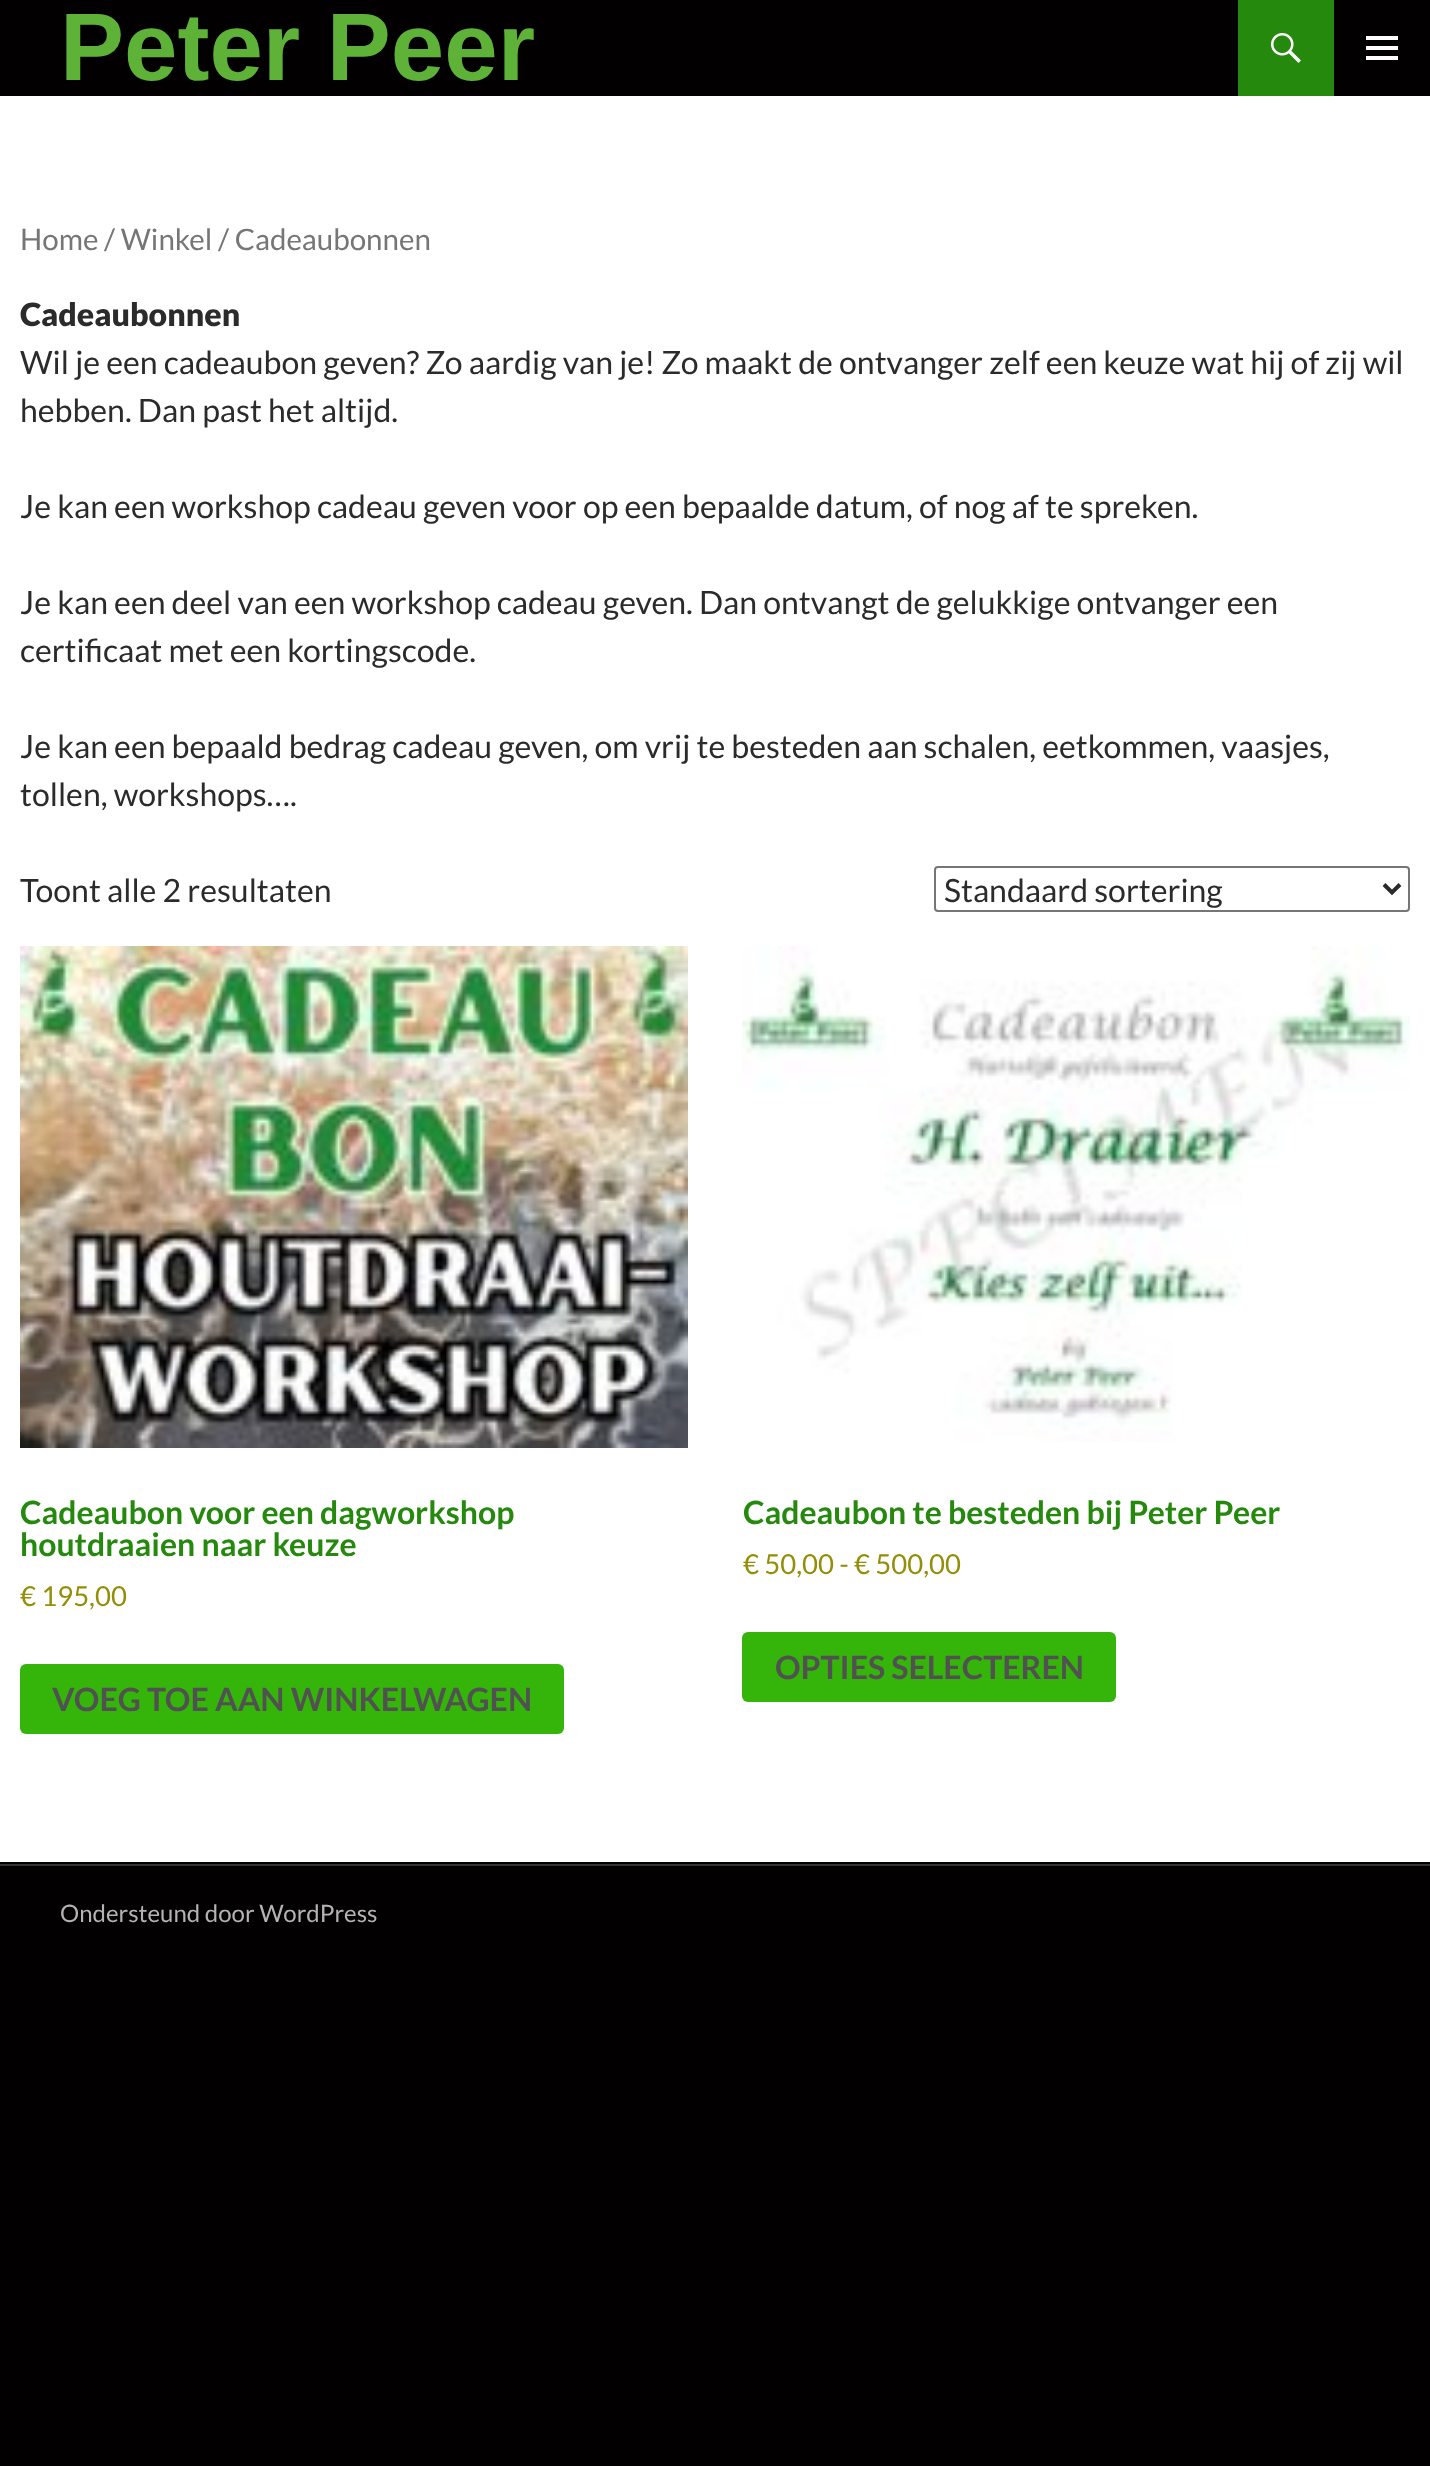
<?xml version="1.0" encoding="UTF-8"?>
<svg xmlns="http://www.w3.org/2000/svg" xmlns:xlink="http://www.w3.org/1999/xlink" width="1430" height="2466">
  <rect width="100%" height="100%" fill="#020000" />
  <rect y="96" width="1430" height="1766" fill="#ffffff" />
  <rect x="1238" width="96" height="96" fill="#24890d" />
  <image x="1271" y="33" width="30" height="30" xlink:href="image1.png" />
  <image x="1366" y="36" width="32" height="24" xlink:href="image2.png" />
  <rect x="935" y="867" width="474" height="44" rx="3" fill="none" stroke="#767676" stroke-width="2" />
  <path d="M 1384 884.5 l 8 8 l 8 -8" fill="none" stroke="#2b2b2b" stroke-width="4" />
  <image x="20" y="946" width="668" height="502" xlink:href="image3.png" />
  <rect x="20" y="1664" width="544" height="70" rx="6" fill="#35b50a" />
  <image x="742" y="946" width="668" height="496" xlink:href="image4.png" />
  <rect x="742" y="1632" width="374" height="70" rx="6" fill="#35b50a" />
  <rect y="1864" width="1430" height="2" fill="#333333" />
  <text x="60" y="80" style="font-family: Liberation Sans; font-size: 96px; font-weight: bold; fill: #5eb237">Peter Peer</text>
  <text x="20" y="250" style="font-family: Lato; font-size: 29.5px; fill: #767676">Home / Winkel / Cadeaubonnen</text>
  <text x="20" y="326" style="font-family: Lato; font-size: 32px; font-weight: 900; fill: #2b2b2b">Cadeaubonnen</text>
  <text x="20" y="374" style="font-family: Lato; font-size: 32px; fill: #2b2b2b">Wil je een cadeaubon geven? Zo aardig van je! Zo maakt de ontvanger zelf een keuze wat hij of zij wil</text>
  <text x="20" y="422" style="font-family: Lato; font-size: 32px; fill: #2b2b2b">hebben. Dan past het altijd.</text>
  <text x="20" y="518" style="font-family: Lato; font-size: 32px; fill: #2b2b2b">Je kan een workshop cadeau geven voor op een bepaalde datum, of nog af te spreken.</text>
  <text x="20" y="614" style="font-family: Lato; font-size: 32px; fill: #2b2b2b">Je kan een deel van een workshop cadeau geven. Dan ontvangt de gelukkige ontvanger een</text>
  <text x="20" y="662" style="font-family: Lato; font-size: 32px; fill: #2b2b2b">certificaat met een kortingscode.</text>
  <text x="20" y="758" style="font-family: Lato; font-size: 32px; fill: #2b2b2b">Je kan een bepaald bedrag cadeau geven, om vrij te besteden aan schalen, eetkommen, vaasjes,</text>
  <text x="20" y="806" style="font-family: Lato; font-size: 32px; fill: #2b2b2b">tollen, workshops….</text>
  <text x="20" y="902" style="font-family: Lato; font-size: 32px; fill: #2b2b2b">Toont alle 2 resultaten</text>
  <text x="944" y="902" style="font-family: Lato; font-size: 32px; fill: #2b2b2b">Standaard sortering</text>
  <text x="20" y="1524" style="font-family: Lato; font-size: 32px; font-weight: bold; fill: #24890d">Cadeaubon voor een dagworkshop</text>
  <text x="20" y="1556" style="font-family: Lato; font-size: 32px; font-weight: bold; fill: #24890d">houtdraaien naar keuze</text>
  <text x="20" y="1606" style="font-family: Lato; font-size: 27.5px; fill: #958e09">€ 195,00</text>
  <text x="52" y="1711" style="font-family: Lato; font-size: 32px; font-weight: bold; fill: #515151">VOEG TOE AAN WINKELWAGEN</text>
  <text x="743" y="1524" style="font-family: Lato; font-size: 32px; font-weight: bold; fill: #24890d">Cadeaubon te besteden bij Peter Peer</text>
  <text x="743" y="1574" style="font-family: Lato; font-size: 27.5px; fill: #958e09">€ 50,00 - € 500,00</text>
  <text x="775" y="1679" style="font-family: Lato; font-size: 32px; font-weight: bold; fill: #515151">OPTIES SELECTEREN</text>
  <text x="60" y="1922" style="font-family: Lato; font-size: 24px; fill: #b3b3b3">Ondersteund door WordPress</text>
</svg>
